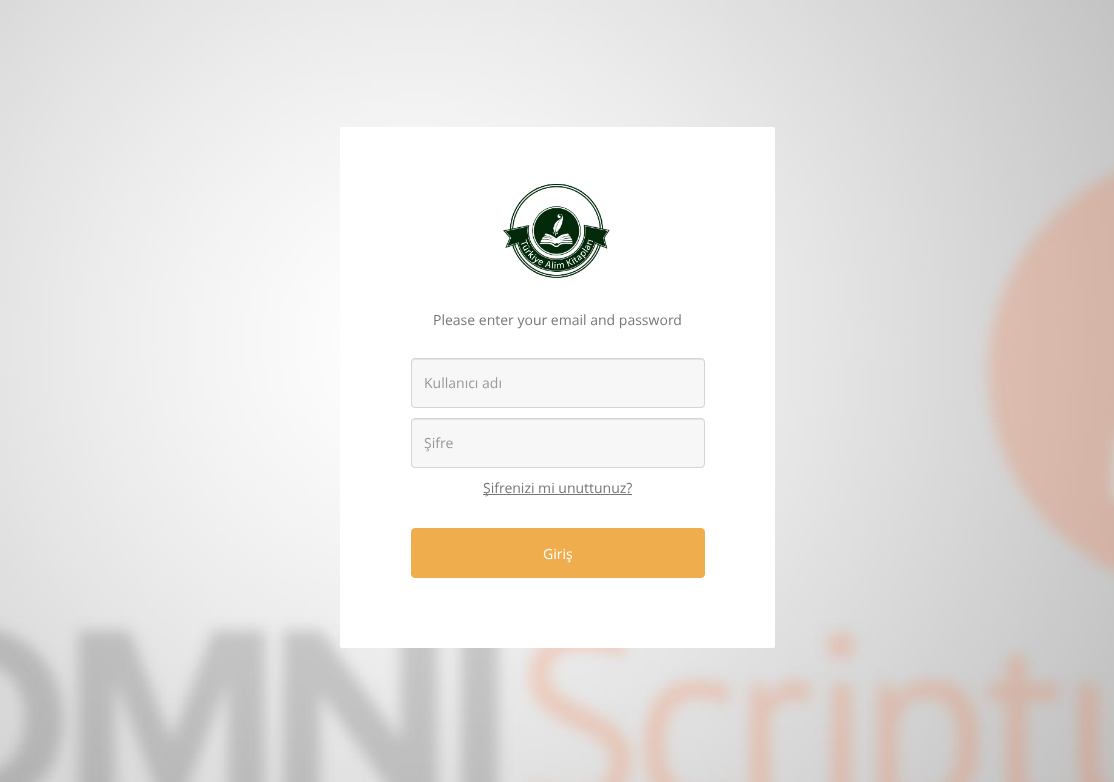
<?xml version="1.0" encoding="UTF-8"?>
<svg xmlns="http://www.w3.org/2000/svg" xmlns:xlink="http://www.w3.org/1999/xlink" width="1114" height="782">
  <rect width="100%" height="100%" fill="#ffffff" />
  <image x="0" y="0" width="1114" height="782" xlink:href="image1.png" />
  <rect x="340" y="127" width="435" height="521" rx="2" fill="#ffffff" />
  <image x="503" y="184" width="107" height="94" xlink:href="image2.png" />
  <rect x="411" y="358" width="294" height="50" rx="4" fill="#f7f7f7" />
  <path d="M 415 360 h 286 c 2 0 3 2 3 3 c 0 -2 -1 -4 -3 -4 h -286 c -2 0 -3 2 -3 4 c 0 -1 1 -3 3 -3 z" fill="#e4e4e4" />
  <rect x="411.5" y="358.5" width="293" height="49" rx="3.5" fill="none" stroke="#d4d4d4" />
  <rect x="411" y="418" width="294" height="50" rx="4" fill="#f7f7f7" />
  <path d="M 415 420 h 286 c 2 0 3 2 3 3 c 0 -2 -1 -4 -3 -4 h -286 c -2 0 -3 2 -3 4 c 0 -1 1 -3 3 -3 z" fill="#e4e4e4" />
  <rect x="411.5" y="418.5" width="293" height="49" rx="3.5" fill="none" stroke="#d4d4d4" />
  <rect x="483" y="494" width="149" height="1" fill="#777777" />
  <rect x="411.5" y="528.5" width="293" height="49" rx="3.5" fill="#f0ad4e" stroke="#f0ad4e" />
  <text x="433" y="325" style="font-family: Open Sans; font-size: 14px; fill: #777777">Please enter your email and password</text>
  <text x="424" y="388" style="font-family: Open Sans; font-size: 14px; fill: #999999">Kullanıcı adı</text>
  <text x="424" y="448" style="font-family: Open Sans; font-size: 14px; fill: #999999">Şifre</text>
  <text x="483" y="493" style="font-family: Open Sans; font-size: 14px; fill: #777777">Şifrenizi mi unuttunuz?</text>
  <text x="543" y="559" style="font-family: Open Sans; font-size: 14px; fill: #ffffff">Giriş</text>
</svg>
